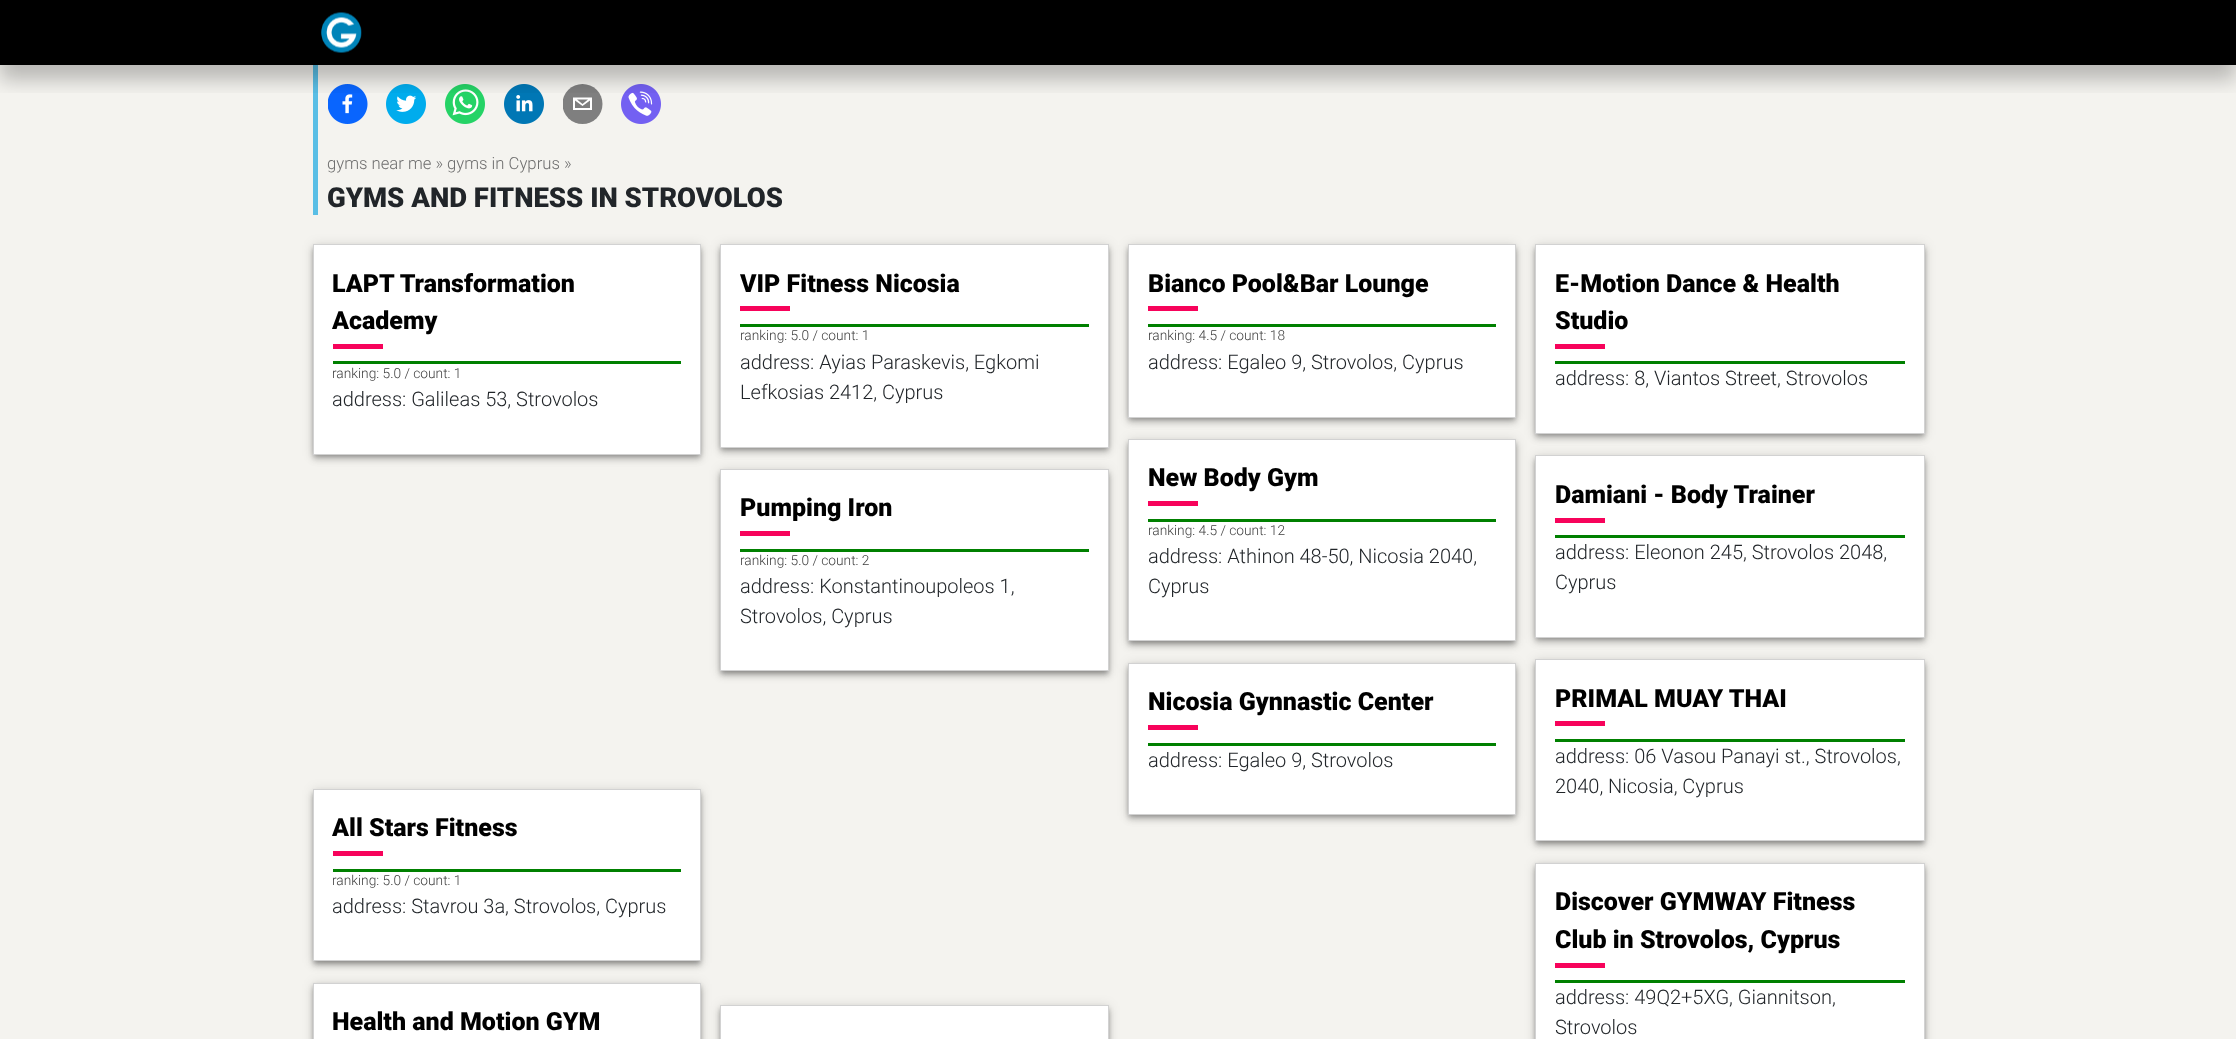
<?xml version="1.0" encoding="UTF-8"?>
<svg xmlns="http://www.w3.org/2000/svg" xmlns:xlink="http://www.w3.org/1999/xlink" width="2236" height="1039">
  <defs>
    <clipPath id="clip1"><rect x="563" y="84" width="40" height="40" /></clipPath>
    <clipPath id="clip2"><rect x="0" y="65" width="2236" height="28" /></clipPath>
  </defs>
  <rect width="100%" height="100%" fill="#000000" />
  <rect y="65" width="2236" height="974" fill="#f4f3ef" />
  <rect x="313" y="65" width="5" height="150" fill="#59bee5" />
  <image x="328" y="84" width="40" height="40" xlink:href="image2.png" />
  <image x="386" y="84" width="40" height="40" xlink:href="image3.png" />
  <image x="445" y="84" width="40" height="40" xlink:href="image4.png" />
  <image x="504" y="84" width="40" height="40" xlink:href="image5.png" />
  <g clip-path="url(#clip1)">
    <circle cx="582.5" cy="104" r="20" fill="#7f7f7f" />
  </g>
  <path d="M 573 97.5 v 12.5 h 19 v -12.5 z m 15 2 l -5.5 4.5 l -5.5 -4.5 z m -13 8.5 v -7.5 l 7.5 5.5 l 7.5 -5.5 v 7.5 z" fill="#ffffff" />
  <image x="621" y="84" width="40" height="40" xlink:href="image6.png" />
  <g clip-path="url(#clip2)">
    <rect y="15" width="2236" height="65" fill="#000000" fill-opacity="0.24" filter="blur(9.5px)" />
  </g>
  <image x="321" y="12" width="41" height="41" xlink:href="image1.png" />
  <rect x="314" y="248" width="386" height="208" fill="#000000" fill-opacity="0.3" filter="blur(2.5px)" />
  <rect x="313" y="245" width="388" height="211" fill="#000000" fill-opacity="0.12" filter="blur(6px)" />
  <rect x="313" y="249" width="388" height="211" fill="#000000" fill-opacity="0.14" filter="blur(3px)" />
  <rect x="313.5" y="244.5" width="387" height="210" fill="#ffffff" stroke="#d2d2d2" />
  <rect x="333" y="344" width="50" height="5" fill="#f7035b" />
  <rect x="333" y="361" width="348" height="3" fill="#008000" />
  <rect x="721" y="248" width="387" height="201" fill="#000000" fill-opacity="0.3" filter="blur(2.5px)" />
  <rect x="720" y="245" width="389" height="204" fill="#000000" fill-opacity="0.12" filter="blur(6px)" />
  <rect x="720" y="249" width="389" height="204" fill="#000000" fill-opacity="0.14" filter="blur(3px)" />
  <rect x="720.5" y="244.5" width="388" height="203" fill="#ffffff" stroke="#d2d2d2" />
  <rect x="740" y="306" width="50" height="5" fill="#f7035b" />
  <rect x="740" y="324" width="349" height="3" fill="#008000" />
  <rect x="1129" y="248" width="386" height="171" fill="#000000" fill-opacity="0.3" filter="blur(2.5px)" />
  <rect x="1128" y="245" width="388" height="174" fill="#000000" fill-opacity="0.12" filter="blur(6px)" />
  <rect x="1128" y="249" width="388" height="174" fill="#000000" fill-opacity="0.14" filter="blur(3px)" />
  <rect x="1128.5" y="244.5" width="387" height="173" fill="#ffffff" stroke="#d2d2d2" />
  <rect x="1148" y="306" width="50" height="5" fill="#f7035b" />
  <rect x="1148" y="324" width="348" height="3" fill="#008000" />
  <rect x="1536" y="248" width="388" height="187" fill="#000000" fill-opacity="0.3" filter="blur(2.5px)" />
  <rect x="1535" y="245" width="390" height="190" fill="#000000" fill-opacity="0.12" filter="blur(6px)" />
  <rect x="1535" y="249" width="390" height="190" fill="#000000" fill-opacity="0.14" filter="blur(3px)" />
  <rect x="1535.5" y="244.5" width="389" height="189" fill="#ffffff" stroke="#d2d2d2" />
  <rect x="1555" y="344" width="50" height="5" fill="#f7035b" />
  <rect x="1555" y="361" width="350" height="3" fill="#008000" />
  <rect x="721" y="473" width="387" height="200" fill="#000000" fill-opacity="0.3" filter="blur(2.5px)" />
  <rect x="720" y="470" width="389" height="203" fill="#000000" fill-opacity="0.12" filter="blur(6px)" />
  <rect x="720" y="474" width="389" height="202" fill="#000000" fill-opacity="0.14" filter="blur(3px)" />
  <rect x="720.5" y="469.5" width="388" height="201" fill="#ffffff" stroke="#d2d2d2" />
  <rect x="740" y="531" width="50" height="5" fill="#f7035b" />
  <rect x="740" y="549" width="349" height="3" fill="#008000" />
  <rect x="1129" y="443" width="386" height="200" fill="#000000" fill-opacity="0.3" filter="blur(2.5px)" />
  <rect x="1128" y="440" width="388" height="203" fill="#000000" fill-opacity="0.12" filter="blur(6px)" />
  <rect x="1128" y="444" width="388" height="202" fill="#000000" fill-opacity="0.14" filter="blur(3px)" />
  <rect x="1128.5" y="439.5" width="387" height="201" fill="#ffffff" stroke="#d2d2d2" />
  <rect x="1148" y="501" width="50" height="5" fill="#f7035b" />
  <rect x="1148" y="519" width="348" height="3" fill="#008000" />
  <rect x="1536" y="459" width="388" height="180" fill="#000000" fill-opacity="0.3" filter="blur(2.5px)" />
  <rect x="1535" y="456" width="390" height="183" fill="#000000" fill-opacity="0.12" filter="blur(6px)" />
  <rect x="1535" y="460" width="390" height="183" fill="#000000" fill-opacity="0.14" filter="blur(3px)" />
  <rect x="1535.5" y="455.5" width="389" height="182" fill="#ffffff" stroke="#d2d2d2" />
  <rect x="1555" y="518" width="50" height="5" fill="#f7035b" />
  <rect x="1555" y="535" width="350" height="3" fill="#008000" />
  <rect x="1129" y="666" width="386" height="150" fill="#000000" fill-opacity="0.3" filter="blur(2.5px)" />
  <rect x="1128" y="664" width="388" height="152" fill="#000000" fill-opacity="0.12" filter="blur(6px)" />
  <rect x="1128" y="668" width="388" height="152" fill="#000000" fill-opacity="0.14" filter="blur(3px)" />
  <rect x="1128.5" y="663.5" width="387" height="151" fill="#ffffff" stroke="#d2d2d2" />
  <rect x="1148" y="725" width="50" height="5" fill="#f7035b" />
  <rect x="1148" y="743" width="348" height="3" fill="#008000" />
  <rect x="1536" y="663" width="388" height="180" fill="#000000" fill-opacity="0.3" filter="blur(2.5px)" />
  <rect x="1535" y="660" width="390" height="183" fill="#000000" fill-opacity="0.12" filter="blur(6px)" />
  <rect x="1535" y="664" width="390" height="182" fill="#000000" fill-opacity="0.14" filter="blur(3px)" />
  <rect x="1535.5" y="659.5" width="389" height="181" fill="#ffffff" stroke="#d2d2d2" />
  <rect x="1555" y="721" width="50" height="5" fill="#f7035b" />
  <rect x="1555" y="739" width="350" height="3" fill="#008000" />
  <rect x="314" y="793" width="386" height="170" fill="#000000" fill-opacity="0.3" filter="blur(2.5px)" />
  <rect x="313" y="790" width="388" height="173" fill="#000000" fill-opacity="0.12" filter="blur(6px)" />
  <rect x="313" y="794" width="388" height="172" fill="#000000" fill-opacity="0.14" filter="blur(3px)" />
  <rect x="313.5" y="789.5" width="387" height="171" fill="#ffffff" stroke="#d2d2d2" />
  <rect x="333" y="851" width="50" height="5" fill="#f7035b" />
  <rect x="333" y="869" width="348" height="3" fill="#008000" />
  <rect x="314" y="986" width="386" height="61" fill="#000000" fill-opacity="0.3" filter="blur(2.5px)" />
  <rect x="313" y="984" width="388" height="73" fill="#000000" fill-opacity="0.12" filter="blur(6px)" />
  <rect x="313" y="988" width="388" height="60" fill="#000000" fill-opacity="0.14" filter="blur(3px)" />
  <rect x="313.5" y="983.5" width="387" height="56" fill="#ffffff" stroke="#d2d2d2" />
  <rect x="721" y="1009" width="387" height="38" fill="#000000" fill-opacity="0.3" filter="blur(2.5px)" />
  <rect x="720" y="1006" width="389" height="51" fill="#000000" fill-opacity="0.12" filter="blur(6px)" />
  <rect x="720" y="1010" width="389" height="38" fill="#000000" fill-opacity="0.14" filter="blur(3px)" />
  <rect x="720.5" y="1005.5" width="388" height="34" fill="#ffffff" stroke="#d2d2d2" />
  <rect x="1536" y="866" width="388" height="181" fill="#000000" fill-opacity="0.3" filter="blur(2.5px)" />
  <rect x="1535" y="864" width="390" height="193" fill="#000000" fill-opacity="0.12" filter="blur(6px)" />
  <rect x="1535" y="868" width="390" height="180" fill="#000000" fill-opacity="0.14" filter="blur(3px)" />
  <rect x="1535.5" y="863.5" width="389" height="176" fill="#ffffff" stroke="#d2d2d2" />
  <rect x="1555" y="963" width="50" height="5" fill="#f7035b" />
  <rect x="1555" y="980" width="350" height="3" fill="#008000" />
  <text x="327" y="169" style="font-family: Roboto; font-size: 16.7px; font-weight: 300; fill: #6e6e6e">gyms near me » gyms in Cyprus »</text>
  <text x="327" y="207" style="font-family: Roboto; font-size: 27.5px; font-weight: 900; fill: #212529">GYMS AND FITNESS IN STROVOLOS</text>
  <text x="332" y="292" style="font-family: Roboto; font-size: 25px; font-weight: 900; fill: #000000">LAPT Transformation</text>
  <text x="332" y="329" style="font-family: Roboto; font-size: 25px; font-weight: 900; fill: #000000">Academy</text>
  <text x="332" y="378" style="font-family: Roboto; font-size: 13.75px; font-weight: 300; fill: #404040">ranking: 5.0 / count: 1</text>
  <text x="332" y="406" style="font-family: Roboto; font-size: 20px; font-weight: 300; fill: #212529">address: Galileas 53, Strovolos</text>
  <text x="740" y="292" style="font-family: Roboto; font-size: 25px; font-weight: 900; fill: #000000">VIP Fitness Nicosia</text>
  <text x="740" y="340" style="font-family: Roboto; font-size: 13.75px; font-weight: 300; fill: #404040">ranking: 5.0 / count: 1</text>
  <text x="740" y="369" style="font-family: Roboto; font-size: 20px; font-weight: 300; fill: #212529">address: Ayias Paraskevis, Egkomi</text>
  <text x="740" y="399" style="font-family: Roboto; font-size: 20px; font-weight: 300; fill: #212529">Lefkosias 2412, Cyprus</text>
  <text x="1148" y="292" style="font-family: Roboto; font-size: 25px; font-weight: 900; fill: #000000">Bianco Pool&amp;Bar Lounge</text>
  <text x="1148" y="340" style="font-family: Roboto; font-size: 13.75px; font-weight: 300; fill: #404040">ranking: 4.5 / count: 18</text>
  <text x="1148" y="369" style="font-family: Roboto; font-size: 20px; font-weight: 300; fill: #212529">address: Egaleo 9, Strovolos, Cyprus</text>
  <text x="1555" y="292" style="font-family: Roboto; font-size: 25px; font-weight: 900; fill: #000000">E-Motion Dance &amp; Health</text>
  <text x="1555" y="329" style="font-family: Roboto; font-size: 25px; font-weight: 900; fill: #000000">Studio</text>
  <text x="1555" y="385" style="font-family: Roboto; font-size: 20px; font-weight: 300; fill: #212529">address: 8, Viantos Street, Strovolos</text>
  <text x="740" y="516" style="font-family: Roboto; font-size: 25px; font-weight: 900; fill: #000000">Pumping Iron</text>
  <text x="740" y="565" style="font-family: Roboto; font-size: 13.75px; font-weight: 300; fill: #404040">ranking: 5.0 / count: 2</text>
  <text x="740" y="593" style="font-family: Roboto; font-size: 20px; font-weight: 300; fill: #212529">address: Konstantinoupoleos 1,</text>
  <text x="740" y="623" style="font-family: Roboto; font-size: 20px; font-weight: 300; fill: #212529">Strovolos, Cyprus</text>
  <text x="1148" y="486" style="font-family: Roboto; font-size: 25px; font-weight: 900; fill: #000000">New Body Gym</text>
  <text x="1148" y="535" style="font-family: Roboto; font-size: 13.75px; font-weight: 300; fill: #404040">ranking: 4.5 / count: 12</text>
  <text x="1148" y="563" style="font-family: Roboto; font-size: 20px; font-weight: 300; fill: #212529">address: Athinon 48-50, Nicosia 2040,</text>
  <text x="1148" y="593" style="font-family: Roboto; font-size: 20px; font-weight: 300; fill: #212529">Cyprus</text>
  <text x="1555" y="503" style="font-family: Roboto; font-size: 25px; font-weight: 900; fill: #000000">Damiani - Body Trainer</text>
  <text x="1555" y="559" style="font-family: Roboto; font-size: 20px; font-weight: 300; fill: #212529">address: Eleonon 245, Strovolos 2048,</text>
  <text x="1555" y="589" style="font-family: Roboto; font-size: 20px; font-weight: 300; fill: #212529">Cyprus</text>
  <text x="1148" y="710" style="font-family: Roboto; font-size: 25px; font-weight: 900; fill: #000000">Nicosia Gynnastic Center</text>
  <text x="1148" y="767" style="font-family: Roboto; font-size: 20px; font-weight: 300; fill: #212529">address: Egaleo 9, Strovolos</text>
  <text x="1555" y="707" style="font-family: Roboto; font-size: 25px; font-weight: 900; fill: #000000">PRIMAL MUAY THAI</text>
  <text x="1555" y="763" style="font-family: Roboto; font-size: 20px; font-weight: 300; fill: #212529">address: 06 Vasou Panayi st., Strovolos,</text>
  <text x="1555" y="793" style="font-family: Roboto; font-size: 20px; font-weight: 300; fill: #212529">2040, Nicosia, Cyprus</text>
  <text x="332" y="836" style="font-family: Roboto; font-size: 25px; font-weight: 900; fill: #000000">All Stars Fitness</text>
  <text x="332" y="885" style="font-family: Roboto; font-size: 13.75px; font-weight: 300; fill: #404040">ranking: 5.0 / count: 1</text>
  <text x="332" y="913" style="font-family: Roboto; font-size: 20px; font-weight: 300; fill: #212529">address: Stavrou 3a, Strovolos, Cyprus</text>
  <text x="332" y="1030" style="font-family: Roboto; font-size: 25px; font-weight: 900; fill: #000000">Health and Motion GYM</text>
  <text x="1555" y="910" style="font-family: Roboto; font-size: 25px; font-weight: 900; fill: #000000">Discover GYMWAY Fitness</text>
  <text x="1555" y="948" style="font-family: Roboto; font-size: 25px; font-weight: 900; fill: #000000">Club in Strovolos, Cyprus</text>
  <text x="1555" y="1004" style="font-family: Roboto; font-size: 20px; font-weight: 300; fill: #212529">address: 49Q2+5XG, Giannitson,</text>
  <text x="1555" y="1034" style="font-family: Roboto; font-size: 20px; font-weight: 300; fill: #212529">Strovolos</text>
</svg>
